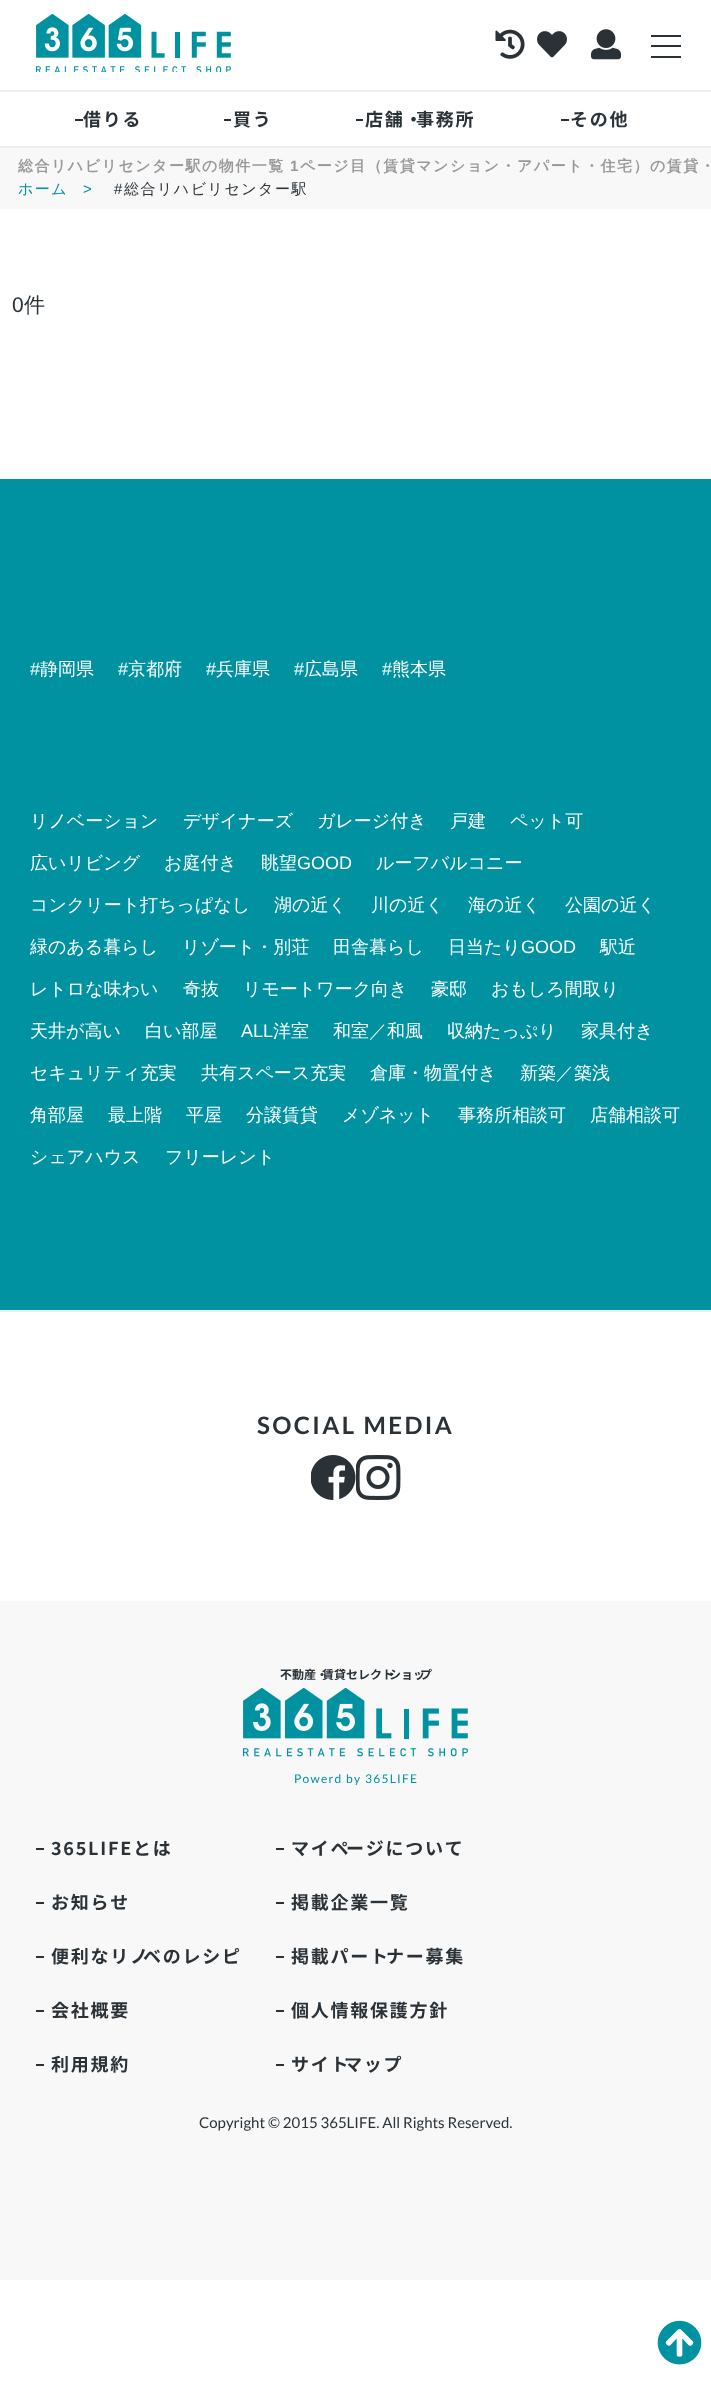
<?xml version="1.0" encoding="UTF-8"?>
<svg xmlns="http://www.w3.org/2000/svg" xmlns:xlink="http://www.w3.org/1999/xlink" width="711" height="2397">
  <style>*{font-kerning:none!important;font-variant-ligatures:none!important}</style>
  <rect width="100%" height="100%" fill="#ffffff" />
  <rect y="146" width="711" height="2" fill="#eeeeee" />
  <image x="36" y="14" width="195" height="58" xlink:href="image1.png" />
  <image x="495" y="29" width="30" height="30" xlink:href="image2.png" />
  <image x="537" y="31" width="30" height="27" xlink:href="image3.png" />
  <image x="591" y="29" width="30" height="31" xlink:href="image4.png" />
  <rect x="651" y="35" width="30" height="2" fill="#2a3238" />
  <rect x="651" y="45" width="30" height="2" fill="#2a3238" />
  <rect x="651" y="56" width="30" height="2" fill="#2a3238" />
  <rect y="90" width="711" height="2" fill="#eeeeee" />
  <rect x="75" y="119" width="8" height="2" fill="#2a3238" />
  <rect x="224" y="119" width="7" height="2" fill="#2a3238" />
  <rect x="356" y="119" width="7" height="2" fill="#2a3238" />
  <rect x="561" y="119" width="8" height="2" fill="#2a3238" />
  <rect y="148" width="711" height="61" fill="#f8f8f8" />
  <rect y="479" width="711" height="831" fill="#0092a1" />
  <rect y="1310" width="711" height="2" fill="#eeeeee" />
  <image x="311" y="1455" width="45" height="45" xlink:href="image5.png" />
  <image x="356" y="1455" width="45" height="45" xlink:href="image6.png" />
  <rect y="1601" width="711" height="679" fill="#f8f8f8" />
  <image x="243" y="1688" width="225" height="69" xlink:href="image7.png" />
  <rect x="36" y="1848" width="8" height="2" fill="#2a3238" />
  <rect x="276" y="1848" width="8" height="2" fill="#2a3238" />
  <rect x="36" y="1902" width="8" height="2" fill="#2a3238" />
  <rect x="276" y="1902" width="8" height="2" fill="#2a3238" />
  <rect x="36" y="1956" width="8" height="2" fill="#2a3238" />
  <rect x="276" y="1956" width="8" height="2" fill="#2a3238" />
  <rect x="36" y="2010" width="8" height="2" fill="#2a3238" />
  <rect x="276" y="2010" width="8" height="2" fill="#2a3238" />
  <rect x="36" y="2064" width="8" height="2" fill="#2a3238" />
  <rect x="276" y="2064" width="8" height="2" fill="#2a3238" />
  <image x="657" y="2320" width="45" height="45" xlink:href="image8.png" />
  <text x="83" y="126" style="font-family: Noto Sans JP; font-size: 18px; font-weight: bold; letter-spacing: 1.75px; fill: #2a3238">借りる</text>
  <text x="233" y="126" style="font-family: Noto Sans JP; font-size: 18px; font-weight: bold; letter-spacing: 1.75px; fill: #2a3238">買う</text>
  <text x="365" y="126" style="font-family: Noto Sans JP; font-size: 18px; font-weight: bold; letter-spacing: 1.75px; fill: #2a3238">店舗・</text>
  <text x="416" y="126" style="font-family: Noto Sans JP; font-size: 18px; font-weight: bold; letter-spacing: 1.75px; fill: #2a3238">事務所</text>
  <text x="570" y="126" style="font-family: Noto Sans JP; font-size: 18px; font-weight: bold; letter-spacing: 1.75px; fill: #2a3238">その他</text>
  <text x="18" y="171" style="font-family: WenQuanYi Zen Hei; font-size: 15px; font-weight: bold; letter-spacing: 1.5px; fill: #999999">総合リハビリセンター駅の物件一覧</text>
  <text x="290" y="171" style="font-family: Liberation Sans; font-size: 15px; font-weight: bold; letter-spacing: 1.5px; fill: #999999">1</text>
  <text x="300" y="171" style="font-family: WenQuanYi Zen Hei; font-size: 15px; font-weight: bold; letter-spacing: 1.5px; fill: #999999">ページ目（賃貸マンション・アパート・住宅）の賃貸・</text>
  <text x="18" y="194" style="font-family: WenQuanYi Zen Hei; font-size: 15px; font-weight: 500; letter-spacing: 1.5px; fill: #0092a1">ホーム</text>
  <text x="83" y="194" style="font-family: Liberation Sans; font-size: 15px; letter-spacing: 1.5px; fill: #0092a1">&gt;</text>
  <text x="114" y="194" style="font-family: Liberation Sans; font-size: 15px; letter-spacing: 1.5px; fill: #2a3238">#</text>
  <text x="124" y="194" style="font-family: WenQuanYi Zen Hei; font-size: 15px; font-weight: 500; letter-spacing: 1.5px; fill: #2a3238">総合リハビリセンター駅</text>
  <text x="12" y="312" style="font-family: Liberation Sans; font-size: 21px; fill: #2a3238">0</text>
  <text x="24" y="312" style="font-family: WenQuanYi Zen Hei; font-size: 21px; font-weight: 500; fill: #2a3238">件</text>
  <text x="30" y="675" style="font-family: Liberation Sans; font-size: 18px; fill: #ffffff">#</text>
  <text x="40" y="675" style="font-family: WenQuanYi Zen Hei; font-size: 18px; font-weight: 500; fill: #ffffff">静岡県</text>
  <text x="118" y="675" style="font-family: Liberation Sans; font-size: 18px; fill: #ffffff">#</text>
  <text x="128" y="675" style="font-family: WenQuanYi Zen Hei; font-size: 18px; font-weight: 500; fill: #ffffff">京都府</text>
  <text x="206" y="675" style="font-family: Liberation Sans; font-size: 18px; fill: #ffffff">#</text>
  <text x="216" y="675" style="font-family: WenQuanYi Zen Hei; font-size: 18px; font-weight: 500; fill: #ffffff">兵庫県</text>
  <text x="294" y="675" style="font-family: Liberation Sans; font-size: 18px; fill: #ffffff">#</text>
  <text x="304" y="675" style="font-family: WenQuanYi Zen Hei; font-size: 18px; font-weight: 500; fill: #ffffff">広島県</text>
  <text x="382" y="675" style="font-family: Liberation Sans; font-size: 18px; fill: #ffffff">#</text>
  <text x="392" y="675" style="font-family: WenQuanYi Zen Hei; font-size: 18px; font-weight: 500; fill: #ffffff">熊本県</text>
  <text x="30" y="827" style="font-family: WenQuanYi Zen Hei; font-size: 18px; font-weight: 500; fill: #ffffff">リノベーション</text>
  <text x="183" y="827" style="font-family: WenQuanYi Zen Hei; font-size: 18px; font-weight: 500; fill: #ffffff">デザイナーズ</text>
  <text x="317" y="827" style="font-family: WenQuanYi Zen Hei; font-size: 18px; font-weight: 500; fill: #ffffff">ガレージ付き</text>
  <text x="450" y="827" style="font-family: WenQuanYi Zen Hei; font-size: 18px; font-weight: 500; fill: #ffffff">戸建</text>
  <text x="510" y="827" style="font-family: WenQuanYi Zen Hei; font-size: 18px; font-weight: 500; fill: #ffffff">ペット可</text>
  <text x="30" y="869" style="font-family: WenQuanYi Zen Hei; font-size: 18px; font-weight: 500; fill: #ffffff">広いリビング</text>
  <text x="164" y="869" style="font-family: WenQuanYi Zen Hei; font-size: 18px; font-weight: 500; fill: #ffffff">お庭付き</text>
  <text x="261" y="869" style="font-family: WenQuanYi Zen Hei; font-size: 18px; font-weight: 500; fill: #ffffff">眺望</text>
  <text x="297" y="869" style="font-family: Liberation Sans; font-size: 18px; fill: #ffffff">GOOD</text>
  <text x="376" y="869" style="font-family: WenQuanYi Zen Hei; font-size: 18px; font-weight: 500; fill: #ffffff">ルーフバルコニー</text>
  <text x="30" y="911" style="font-family: WenQuanYi Zen Hei; font-size: 18px; font-weight: 500; fill: #ffffff">コンクリート打ちっぱなし</text>
  <text x="274" y="911" style="font-family: WenQuanYi Zen Hei; font-size: 18px; font-weight: 500; fill: #ffffff">湖の近く</text>
  <text x="371" y="911" style="font-family: WenQuanYi Zen Hei; font-size: 18px; font-weight: 500; fill: #ffffff">川の近く</text>
  <text x="468" y="911" style="font-family: WenQuanYi Zen Hei; font-size: 18px; font-weight: 500; fill: #ffffff">海の近く</text>
  <text x="565" y="911" style="font-family: WenQuanYi Zen Hei; font-size: 18px; font-weight: 500; fill: #ffffff">公園の近く</text>
  <text x="30" y="953" style="font-family: WenQuanYi Zen Hei; font-size: 18px; font-weight: 500; fill: #ffffff">緑のある暮らし</text>
  <text x="182" y="953" style="font-family: WenQuanYi Zen Hei; font-size: 18px; font-weight: 500; fill: #ffffff">リゾート・別荘</text>
  <text x="333" y="953" style="font-family: WenQuanYi Zen Hei; font-size: 18px; font-weight: 500; fill: #ffffff">田舎暮らし</text>
  <text x="448" y="953" style="font-family: WenQuanYi Zen Hei; font-size: 18px; font-weight: 500; fill: #ffffff">日当たり</text>
  <text x="521" y="953" style="font-family: Liberation Sans; font-size: 18px; fill: #ffffff">GOOD</text>
  <text x="600" y="953" style="font-family: WenQuanYi Zen Hei; font-size: 18px; font-weight: 500; fill: #ffffff">駅近</text>
  <text x="30" y="995" style="font-family: WenQuanYi Zen Hei; font-size: 18px; font-weight: 500; fill: #ffffff">レトロな味わい</text>
  <text x="183" y="995" style="font-family: WenQuanYi Zen Hei; font-size: 18px; font-weight: 500; fill: #ffffff">奇抜</text>
  <text x="243" y="995" style="font-family: WenQuanYi Zen Hei; font-size: 18px; font-weight: 500; fill: #ffffff">リモートワーク向き</text>
  <text x="431" y="995" style="font-family: WenQuanYi Zen Hei; font-size: 18px; font-weight: 500; fill: #ffffff">豪邸</text>
  <text x="491" y="995" style="font-family: WenQuanYi Zen Hei; font-size: 18px; font-weight: 500; fill: #ffffff">おもしろ間取り</text>
  <text x="30" y="1037" style="font-family: WenQuanYi Zen Hei; font-size: 18px; font-weight: 500; fill: #ffffff">天井が高い</text>
  <text x="145" y="1037" style="font-family: WenQuanYi Zen Hei; font-size: 18px; font-weight: 500; fill: #ffffff">白い部屋</text>
  <text x="241" y="1037" style="font-family: Liberation Sans; font-size: 18px; fill: #ffffff">ALL</text>
  <text x="273" y="1037" style="font-family: WenQuanYi Zen Hei; font-size: 18px; font-weight: 500; fill: #ffffff">洋室</text>
  <text x="333" y="1037" style="font-family: WenQuanYi Zen Hei; font-size: 18px; font-weight: 500; fill: #ffffff">和室／和風</text>
  <text x="447" y="1037" style="font-family: WenQuanYi Zen Hei; font-size: 18px; font-weight: 500; fill: #ffffff">収納たっぷり</text>
  <text x="581" y="1037" style="font-family: WenQuanYi Zen Hei; font-size: 18px; font-weight: 500; fill: #ffffff">家具付き</text>
  <text x="30" y="1079" style="font-family: WenQuanYi Zen Hei; font-size: 18px; font-weight: 500; fill: #ffffff">セキュリティ充実</text>
  <text x="201" y="1079" style="font-family: WenQuanYi Zen Hei; font-size: 18px; font-weight: 500; fill: #ffffff">共有スペース充実</text>
  <text x="370" y="1079" style="font-family: WenQuanYi Zen Hei; font-size: 18px; font-weight: 500; fill: #ffffff">倉庫・物置付き</text>
  <text x="520" y="1079" style="font-family: WenQuanYi Zen Hei; font-size: 18px; font-weight: 500; fill: #ffffff">新築／築浅</text>
  <text x="30" y="1121" style="font-family: WenQuanYi Zen Hei; font-size: 18px; font-weight: 500; fill: #ffffff">角部屋</text>
  <text x="108" y="1121" style="font-family: WenQuanYi Zen Hei; font-size: 18px; font-weight: 500; fill: #ffffff">最上階</text>
  <text x="186" y="1121" style="font-family: WenQuanYi Zen Hei; font-size: 18px; font-weight: 500; fill: #ffffff">平屋</text>
  <text x="246" y="1121" style="font-family: WenQuanYi Zen Hei; font-size: 18px; font-weight: 500; fill: #ffffff">分譲賃貸</text>
  <text x="342" y="1121" style="font-family: WenQuanYi Zen Hei; font-size: 18px; font-weight: 500; fill: #ffffff">メゾネット</text>
  <text x="458" y="1121" style="font-family: WenQuanYi Zen Hei; font-size: 18px; font-weight: 500; fill: #ffffff">事務所相談可</text>
  <text x="590" y="1121" style="font-family: WenQuanYi Zen Hei; font-size: 18px; font-weight: 500; fill: #ffffff">店舗相談可</text>
  <text x="30" y="1163" style="font-family: WenQuanYi Zen Hei; font-size: 18px; font-weight: 500; fill: #ffffff">シェアハウス</text>
  <text x="165" y="1163" style="font-family: WenQuanYi Zen Hei; font-size: 18px; font-weight: 500; fill: #ffffff">フリーレント</text>
  <text x="257" y="1434" style="font-family: Lato; font-size: 24px; font-weight: bold; letter-spacing: 2.4px; fill: #2a3238">SOCIAL MEDIA</text>
  <text x="280" y="1679" style="font-family: Noto Sans JP; font-size: 12px; font-weight: bold; fill: #2a3238">不動産・</text>
  <text x="322" y="1679" style="font-family: Noto Sans JP; font-size: 12px; font-weight: bold; fill: #2a3238">賃貸セレクト</text>
  <text x="389" y="1679" style="font-family: Noto Sans JP; font-size: 12px; font-weight: bold; fill: #2a3238">ショッ</text>
  <text x="420" y="1679" style="font-family: Noto Sans JP; font-size: 12px; font-weight: bold; fill: #2a3238">プ</text>
  <text x="294" y="1783" style="font-family: Lato; font-size: 12px; letter-spacing: 1.25px; fill: #0092a1">Powerd by 365LIFE</text>
  <text x="51" y="1855" style="font-family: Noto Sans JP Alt; font-size: 18px; font-weight: bold; letter-spacing: 1.75px; fill: #2a3238">365LIFEとは</text>
  <text x="291" y="1855" style="font-family: Noto Sans JP; font-size: 18px; font-weight: bold; letter-spacing: 1.75px; fill: #2a3238">マイペ</text>
  <text x="346" y="1855" style="font-family: Noto Sans JP; font-size: 18px; font-weight: bold; letter-spacing: 1.75px; fill: #2a3238">ージについて</text>
  <text x="51" y="1909" style="font-family: Noto Sans JP; font-size: 18px; font-weight: bold; letter-spacing: 1.75px; fill: #2a3238">お知らせ</text>
  <text x="291" y="1909" style="font-family: Noto Sans JP; font-size: 18px; font-weight: bold; letter-spacing: 1.75px; fill: #2a3238">掲載企業一覧</text>
  <text x="51" y="1963" style="font-family: Noto Sans JP; font-size: 18px; font-weight: bold; letter-spacing: 1.75px; fill: #2a3238">便利なリノ</text>
  <text x="143" y="1963" style="font-family: Noto Sans JP; font-size: 18px; font-weight: bold; letter-spacing: 1.75px; fill: #2a3238">ベのレシピ</text>
  <text x="291" y="1963" style="font-family: Noto Sans JP; font-size: 18px; font-weight: bold; letter-spacing: 1.75px; fill: #2a3238">掲載パート</text>
  <text x="386" y="1963" style="font-family: Noto Sans JP; font-size: 18px; font-weight: bold; letter-spacing: 1.75px; fill: #2a3238">ナー募集</text>
  <text x="51" y="2017" style="font-family: Noto Sans JP; font-size: 18px; font-weight: bold; letter-spacing: 1.75px; fill: #2a3238">会社概要</text>
  <text x="291" y="2017" style="font-family: Noto Sans JP; font-size: 18px; font-weight: bold; letter-spacing: 1.75px; fill: #2a3238">個人情報保護方針</text>
  <text x="51" y="2071" style="font-family: Noto Sans JP; font-size: 18px; font-weight: bold; letter-spacing: 1.75px; fill: #2a3238">利用規約</text>
  <text x="291" y="2071" style="font-family: Noto Sans JP; font-size: 18px; font-weight: bold; letter-spacing: 1.75px; fill: #2a3238">サイト</text>
  <text x="344" y="2071" style="font-family: Noto Sans JP; font-size: 18px; font-weight: bold; letter-spacing: 1.75px; fill: #2a3238">マップ</text>
  <text x="199" y="2128" style="font-family: Lato; font-size: 15px; fill: #2a3238">Copyright © 2015 365LIFE. All Rights Reserved.</text>
</svg>
